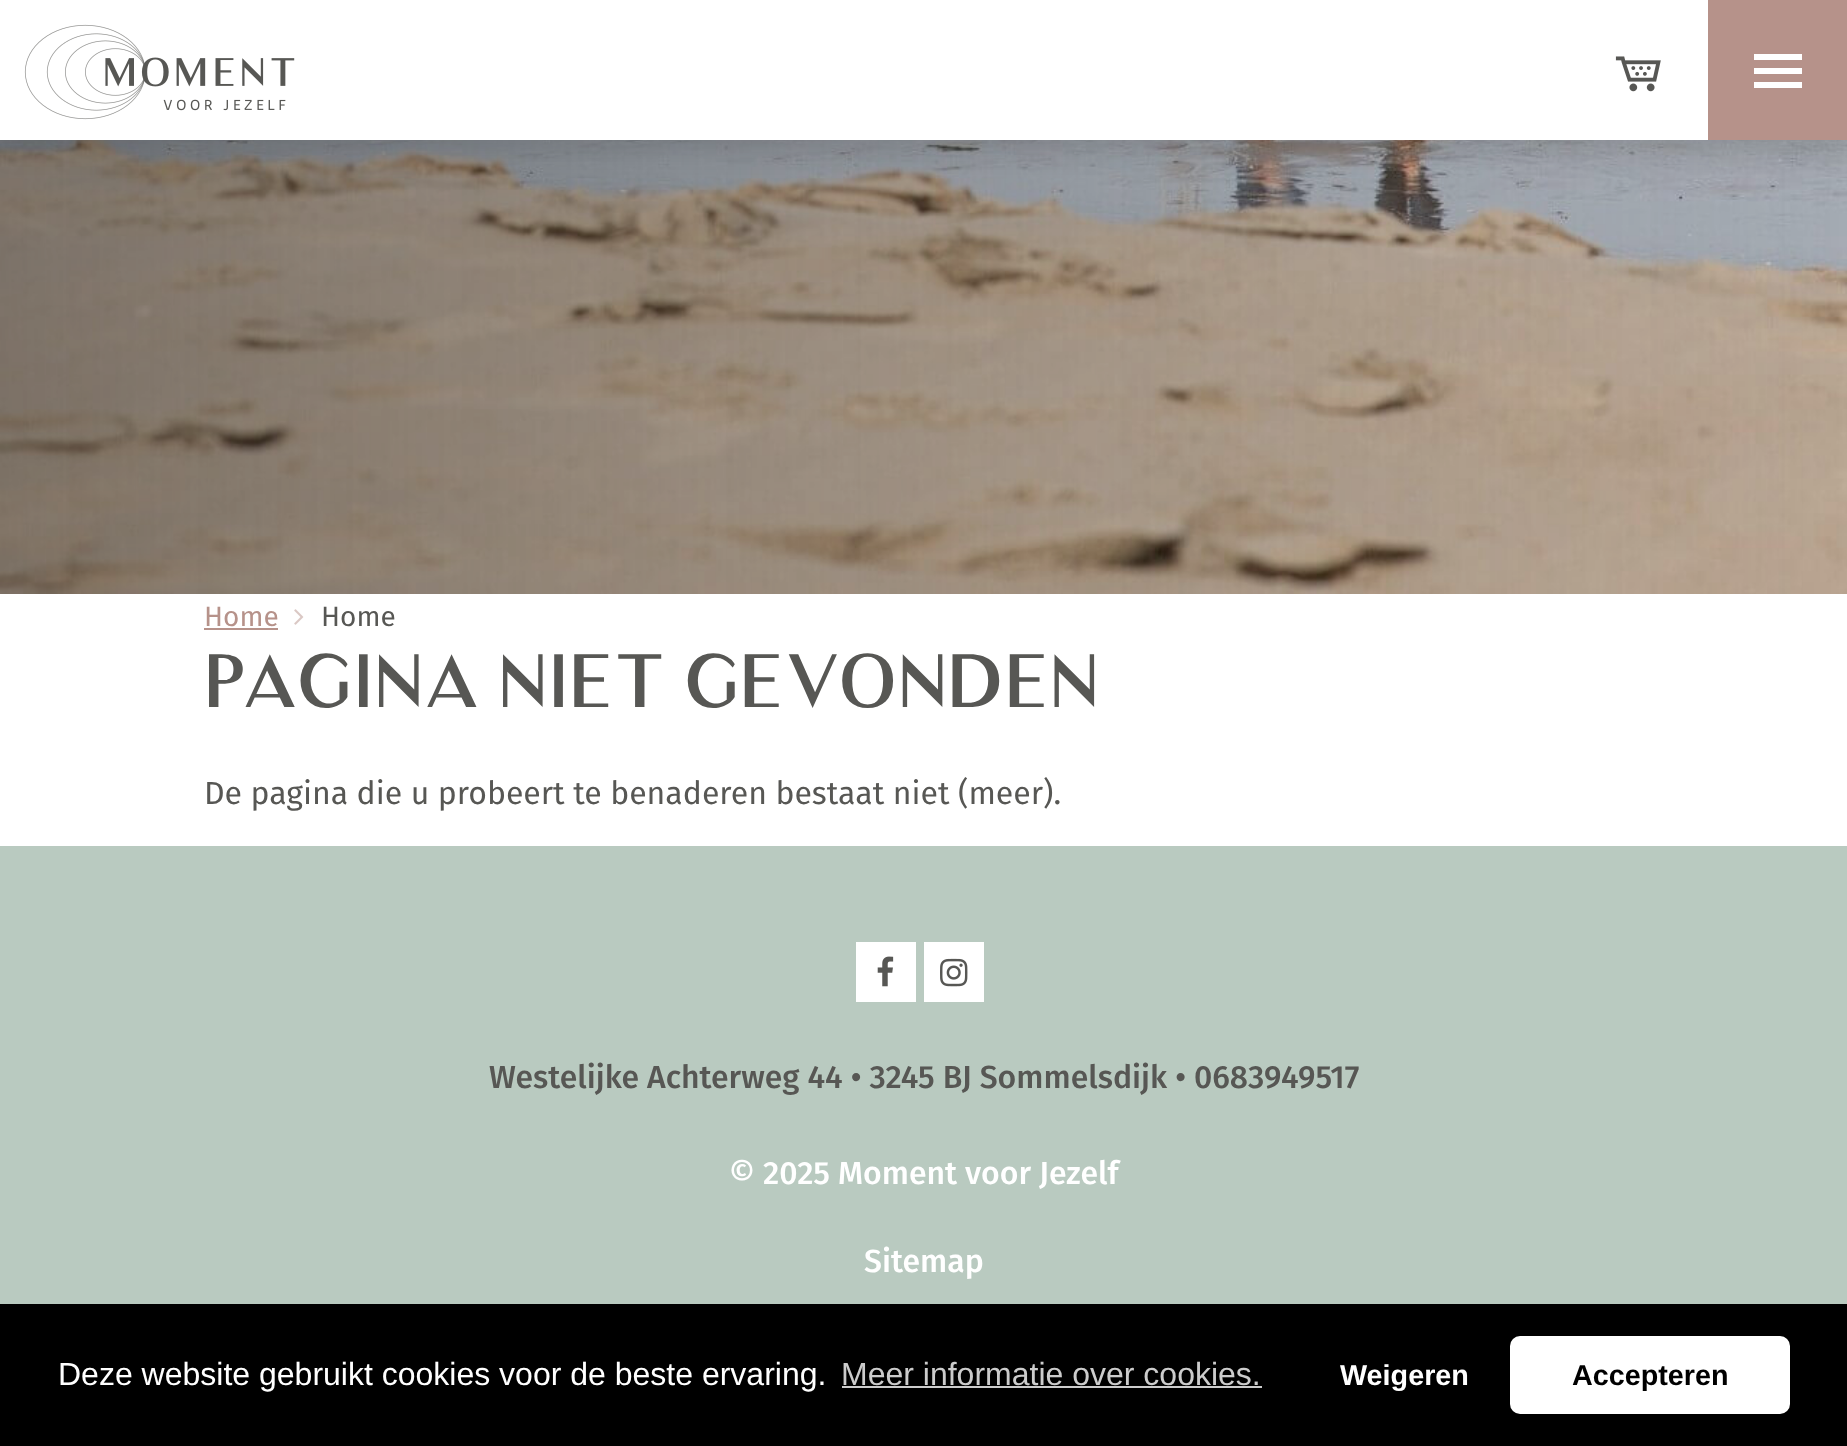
<?xml version="1.0" encoding="UTF-8"?>
<svg xmlns="http://www.w3.org/2000/svg" xmlns:xlink="http://www.w3.org/1999/xlink" width="1847" height="1446">
  <rect width="100%" height="100%" fill="#ffffff" />
  <image x="0" y="140" width="1847" height="454" xlink:href="image3.png" />
  <rect y="12" width="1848" height="140" fill="#000000" fill-opacity="0.1" filter="blur(12px)" />
  <rect width="1708" height="140" fill="#ffffff" />
  <image x="24" y="24" width="271" height="96" xlink:href="image1.png" />
  <image x="1615" y="56" width="46" height="36" xlink:href="image2.png" />
  <rect x="1708" width="139" height="140" fill="#b6928a" />
  <rect x="1754" y="54" width="48" height="6" fill="#ffffff" />
  <rect x="1754" y="68" width="48" height="6" fill="#ffffff" />
  <rect x="1754" y="82" width="48" height="6" fill="#ffffff" />
  <rect x="204" y="628" width="74" height="2" fill="#b6928a" />
  <image x="294" y="609" width="10" height="16" xlink:href="image4.png" />
  <rect y="846" width="1847" height="458" fill="#b9cac0" />
  <rect x="856" y="942" width="60" height="60" fill="#ffffff" />
  <image x="877" y="956" width="17" height="31" xlink:href="image5.png" />
  <rect x="924" y="942" width="60" height="60" fill="#ffffff" />
  <image x="940" y="958" width="28" height="29" xlink:href="image6.png" />
  <rect y="1304" width="1847" height="142" fill="#000000" />
  <rect x="842" y="1386" width="420" height="2" fill="#cccccc" />
  <rect x="1510" y="1336" width="280" height="78" rx="10" fill="#ffffff" />
  <text x="204" y="626" style="font-family: Fira Sans; font-size: 28px; fill: #b6928a">Home</text>
  <text x="321" y="626" style="font-family: Fira Sans; font-size: 28px; fill: #575754">Home</text>
  <text x="204" y="707" style="font-family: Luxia; font-size: 72px; font-weight: 600; fill: #575754">Pagina niet gevonden</text>
  <text x="204" y="804" style="font-family: Fira Sans; font-size: 32px; fill: #575754">De pagina die u probeert te benaderen bestaat niet (meer).</text>
  <text x="489" y="1088" style="font-family: Fira Sans; font-size: 32px; font-weight: 500; fill: #575754">Westelijke Achterweg 44 • 3245 BJ Sommelsdijk • 0683949517</text>
  <text x="729" y="1184" style="font-family: Fira Sans; font-size: 32px; font-weight: 500; fill: #ffffff">© 2025 Moment voor Jezelf</text>
  <text x="864" y="1272" style="font-family: Fira Sans; font-size: 32px; font-weight: 500; fill: #ffffff">Sitemap</text>
  <text x="58" y="1385" style="font-family: Liberation Sans; font-size: 32px; fill: #ffffff">Deze website gebruikt cookies voor de beste ervaring.</text>
  <text x="841" y="1385" style="font-family: Liberation Sans; font-size: 32px; fill: #cccccc">Meer informatie over cookies.</text>
  <text x="1340" y="1385" style="font-family: Liberation Sans; font-size: 28.75px; font-weight: bold; fill: #ffffff">Weigeren</text>
  <text x="1572" y="1385" style="font-family: Liberation Sans; font-size: 28.75px; font-weight: bold; fill: #000000">Accepteren</text>
</svg>
